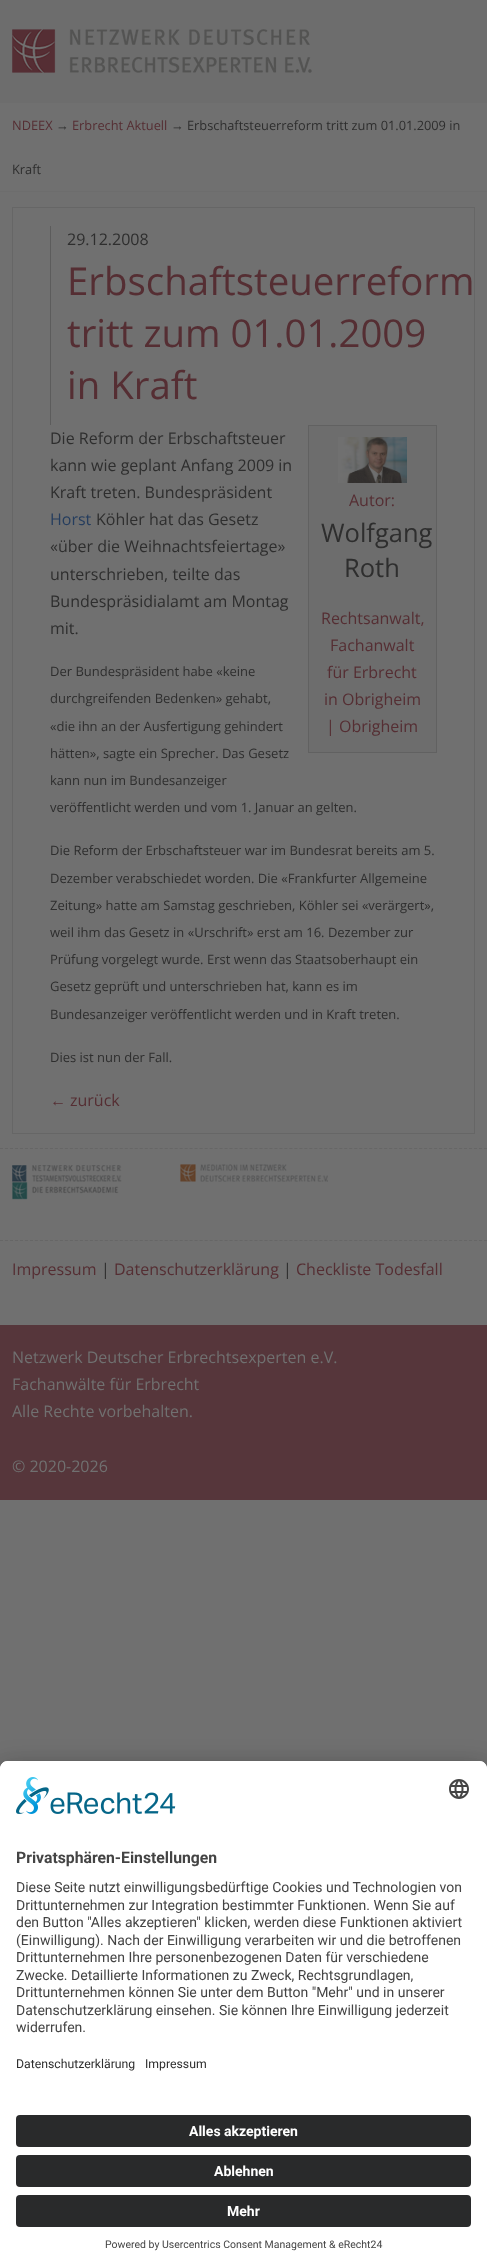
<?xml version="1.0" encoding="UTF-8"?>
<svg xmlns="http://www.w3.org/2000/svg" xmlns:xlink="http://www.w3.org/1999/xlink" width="487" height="2267">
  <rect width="100%" height="100%" fill="#707070" />
  <rect width="487" height="103" fill="#6d6d6d" />
  <image x="12" y="29" width="300" height="44" xlink:href="image1.png" />
  <rect y="191" width="487" height="1" fill="#6d6d6d" />
  <rect x="12.5" y="207.5" width="462" height="926" fill="none" stroke="#666666" />
  <rect x="50" y="226" width="1" height="199" fill="#5c5c5c" />
  <rect x="308.5" y="425.5" width="128" height="327" fill="#6d6d6d" stroke="#616161" />
  <image x="338" y="437" width="69" height="46" xlink:href="image2.png" />
  <path d="M 0 1148.5 h 487" fill="none" stroke="#666666" stroke-dasharray="3 1.99" />
  <image x="12" y="1165" width="110" height="17" xlink:href="image3.png" />
  <image x="180" y="1164" width="148" height="18" xlink:href="image4.png" />
  <image x="12" y="1182" width="107" height="18" xlink:href="image5.png" />
  <path d="M 0 1240.5 h 487" fill="none" stroke="#666666" stroke-dasharray="3 1.99" />
  <rect y="1325" width="487" height="175" fill="#56363b" />
  <rect y="1781" width="487" height="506" rx="8" fill="#000000" fill-opacity="0.3" filter="blur(14px)" />
  <rect y="1766" width="487" height="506" rx="8" fill="#000000" fill-opacity="0.22" filter="blur(13px)" />
  <path d="M 8 1761 h 471 c 4.5 0 8 3.5 8 8 v 498 h -487 v -498 c 0 -4.5 3.5 -8 8 -8 z" fill="#ffffff" />
  <path d="M 8 1761 h 471 c 4.5 0 8 3.5 8 8 v 334 h -487 v -334 c 0 -4.5 3.5 -8 8 -8 z" fill="#ffffff" />
  <image x="16" y="1777" width="160" height="37" xlink:href="image6.png" />
  <image x="449" y="1779" width="20" height="20" xlink:href="image7.png" />
  <rect x="16" y="2115" width="455" height="32" rx="4" fill="#292a2b" />
  <rect x="16" y="2155" width="455" height="32" rx="4" fill="#292a2b" />
  <rect x="16" y="2195" width="455" height="32" rx="4" fill="#292a2b" />
  <text x="12" y="130" style="font-family: Open Sans; font-size: 12.8px; fill: #552e33">NDEEX</text>
  <text x="56" y="130" style="font-family: Liberation Sans; font-size: 12.8px; fill: #2e2e2e">→</text>
  <text x="72" y="130" style="font-family: Open Sans; font-size: 12.8px; fill: #552e33">Erbrecht Aktuell</text>
  <text x="171" y="130" style="font-family: Liberation Sans; font-size: 12.8px; fill: #2e2e2e">→</text>
  <text x="187" y="130" style="font-family: Open Sans; font-size: 12.8px; fill: #2e2e2e">Erbschaftsteuerreform tritt zum 01.01.2009 in</text>
  <text x="12" y="174" style="font-family: Open Sans; font-size: 12.8px; fill: #2e2e2e">Kraft</text>
  <text x="67" y="245" style="font-family: Open Sans; font-size: 16px; fill: #2e2e2e">29.12.2008</text>
  <text x="67" y="295" style="font-family: Open Sans; font-size: 38.4px; fill: #552e33">Erbschaftsteuerreform</text>
  <text x="67" y="347" style="font-family: Open Sans; font-size: 38.4px; fill: #552e33">tritt zum 01.01.2009</text>
  <text x="67" y="399" style="font-family: Open Sans; font-size: 38.4px; fill: #552e33">in Kraft</text>
  <text x="50" y="444" style="font-family: Open Sans; font-size: 16px; fill: #2e2e2e">Die Reform der Erbschaftsteuer</text>
  <text x="50" y="471" style="font-family: Open Sans; font-size: 16px; fill: #2e2e2e">kann wie geplant Anfang 2009 in</text>
  <text x="50" y="498" style="font-family: Open Sans; font-size: 16px; fill: #2e2e2e">Kraft treten. Bundespräsident</text>
  <text x="50" y="525" style="font-family: Open Sans; font-size: 16px; fill: #253d5e">Horst</text>
  <text x="96" y="525" style="font-family: Open Sans; font-size: 16px; fill: #2e2e2e">Köhler hat das Gesetz</text>
  <text x="50" y="552" style="font-family: Open Sans; font-size: 16px; fill: #2e2e2e">«über die Weihnachtsfeiertage»</text>
  <text x="50" y="580" style="font-family: Open Sans; font-size: 16px; fill: #2e2e2e">unterschrieben, teilte das</text>
  <text x="50" y="607" style="font-family: Open Sans; font-size: 16px; fill: #2e2e2e">Bundespräsidialamt am Montag</text>
  <text x="50" y="634" style="font-family: Open Sans; font-size: 16px; fill: #2e2e2e">mit.</text>
  <text x="349" y="506" style="font-family: Open Sans; font-size: 16px; fill: #552e33">Autor:</text>
  <text x="321" y="542" style="font-family: Open Sans; font-size: 25.5px; fill: #2e2e2e">Wolfgang</text>
  <text x="344" y="577" style="font-family: Open Sans; font-size: 25.5px; fill: #2e2e2e">Roth</text>
  <text x="321" y="624" style="font-family: Open Sans; font-size: 16px; fill: #552e33">Rechtsanwalt,</text>
  <text x="330" y="651" style="font-family: Open Sans; font-size: 16px; fill: #552e33">Fachanwalt</text>
  <text x="327" y="678" style="font-family: Open Sans; font-size: 16px; fill: #552e33">für Erbrecht</text>
  <text x="324" y="705" style="font-family: Open Sans; font-size: 16px; fill: #552e33">in Obrigheim</text>
  <text x="326" y="732" style="font-family: Open Sans; font-size: 16px; fill: #552e33">| Obrigheim</text>
  <text x="50" y="676" style="font-family: Open Sans; font-size: 13px; fill: #2e2e2e">Der Bundespräsident habe «keine</text>
  <text x="50" y="703" style="font-family: Open Sans; font-size: 13px; fill: #2e2e2e">durchgreifenden Bedenken» gehabt,</text>
  <text x="50" y="731" style="font-family: Open Sans; font-size: 13px; fill: #2e2e2e">«die ihn an der Ausfertigung gehindert</text>
  <text x="50" y="758" style="font-family: Open Sans; font-size: 13px; fill: #2e2e2e">hätten», sagte ein Sprecher. Das Gesetz</text>
  <text x="50" y="785" style="font-family: Open Sans; font-size: 13px; fill: #2e2e2e">kann nun im Bundesanzeiger</text>
  <text x="50" y="812" style="font-family: Open Sans; font-size: 13px; fill: #2e2e2e">veröffentlicht werden und vom 1. Januar an gelten.</text>
  <text x="50" y="855" style="font-family: Open Sans; font-size: 13px; fill: #2e2e2e">Die Reform der Erbschaftsteuer war im Bundesrat bereits am 5.</text>
  <text x="50" y="883" style="font-family: Open Sans; font-size: 13px; fill: #2e2e2e">Dezember verabschiedet worden. Die «Frankfurter Allgemeine</text>
  <text x="50" y="910" style="font-family: Open Sans; font-size: 13px; fill: #2e2e2e">Zeitung» hatte am Samstag geschrieben, Köhler sei «verärgert»,</text>
  <text x="50" y="937" style="font-family: Open Sans; font-size: 13px; fill: #2e2e2e">weil ihm das Gesetz in «Urschrift» erst am 16. Dezember zur</text>
  <text x="50" y="964" style="font-family: Open Sans; font-size: 13px; fill: #2e2e2e">Prüfung vorgelegt wurde. Erst wenn das Staatsoberhaupt ein</text>
  <text x="50" y="991" style="font-family: Open Sans; font-size: 13px; fill: #2e2e2e">Gesetz geprüft und unterschrieben hat, kann es im</text>
  <text x="50" y="1019" style="font-family: Open Sans; font-size: 13px; fill: #2e2e2e">Bundesanzeiger veröffentlicht werden und in Kraft treten.</text>
  <text x="50" y="1062" style="font-family: Open Sans; font-size: 13px; fill: #2e2e2e">Dies ist nun der Fall.</text>
  <text x="50" y="1106" style="font-family: Liberation Sans; font-size: 16px; fill: #552e33">←</text>
  <text x="70" y="1106" style="font-family: Open Sans; font-size: 16px; fill: #552e33">zurück</text>
  <text x="12" y="1275" style="font-family: Open Sans; font-size: 16px; fill: #552e33">Impressum</text>
  <text x="101" y="1275" style="font-family: Open Sans; font-size: 16px; fill: #2e2e2e">|</text>
  <text x="114" y="1275" style="font-family: Open Sans; font-size: 16px; fill: #552e33">Datenschutzerklärung</text>
  <text x="283" y="1275" style="font-family: Open Sans; font-size: 16px; fill: #2e2e2e">|</text>
  <text x="296" y="1275" style="font-family: Open Sans; font-size: 16px; fill: #552e33">Checkliste Todesfall</text>
  <text x="12" y="1363" style="font-family: Open Sans; font-size: 16px; fill: #707070">Netzwerk Deutscher Erbrechtsexperten e.V.</text>
  <text x="12" y="1390" style="font-family: Open Sans; font-size: 16px; fill: #707070">Fachanwälte für Erbrecht</text>
  <text x="12" y="1417" style="font-family: Open Sans; font-size: 16px; fill: #707070">Alle Rechte vorbehalten.</text>
  <text x="12" y="1472" style="font-family: Open Sans; font-size: 16px; fill: #707070">© 2020-2026</text>
  <text x="16" y="1863" style="font-family: Roboto; font-size: 15.75px; font-weight: bold; fill: #444444">Privatsphären-Einstellungen</text>
  <text x="16" y="1892" style="font-family: Roboto; font-size: 14px; fill: #444444">Diese Seite nutzt einwilligungsbedürftige Cookies und Technologien von</text>
  <text x="16" y="1910" style="font-family: Roboto; font-size: 14px; fill: #444444">Drittunternehmen zur Integration bestimmter Funktionen. Wenn Sie auf</text>
  <text x="16" y="1927" style="font-family: Roboto; font-size: 14px; fill: #444444">den Button "Alles akzeptieren" klicken, werden diese Funktionen aktiviert</text>
  <text x="16" y="1945" style="font-family: Roboto; font-size: 14px; fill: #444444">(Einwilligung). Nach der Einwilligung verarbeiten wir und die betroffenen</text>
  <text x="16" y="1962" style="font-family: Roboto; font-size: 14px; fill: #444444">Drittunternehmen Ihre personenbezogenen Daten für verschiedene</text>
  <text x="16" y="1980" style="font-family: Roboto; font-size: 14px; fill: #444444">Zwecke. Detaillierte Informationen zu Zweck, Rechtsgrundlagen,</text>
  <text x="16" y="1997" style="font-family: Roboto; font-size: 14px; fill: #444444">Drittunternehmen können Sie unter dem Button "Mehr" und in unserer</text>
  <text x="16" y="2015" style="font-family: Roboto; font-size: 14px; fill: #444444">Datenschutzerklärung einsehen. Sie können Ihre Einwilligung jederzeit</text>
  <text x="16" y="2032" style="font-family: Roboto; font-size: 14px; fill: #444444">widerrufen.</text>
  <text x="16" y="2068" style="font-family: Roboto; font-size: 12.25px; fill: #2e2e2e">Datenschutzerklärung</text>
  <text x="145" y="2068" style="font-family: Roboto; font-size: 12.25px; fill: #2e2e2e">Impressum</text>
  <text x="189" y="2136" style="font-family: Roboto; font-size: 14px; font-weight: bold; fill: #ffffff">Alles akzeptieren</text>
  <text x="214" y="2176" style="font-family: Roboto; font-size: 14px; font-weight: bold; fill: #ffffff">Ablehnen</text>
  <text x="227" y="2216" style="font-family: Roboto; font-size: 14px; font-weight: bold; fill: #ffffff">Mehr</text>
  <text x="105" y="2248" style="font-family: Roboto; font-size: 10.5px; fill: #444444">Powered by Usercentrics Consent Management &amp; eRecht24</text>
</svg>
